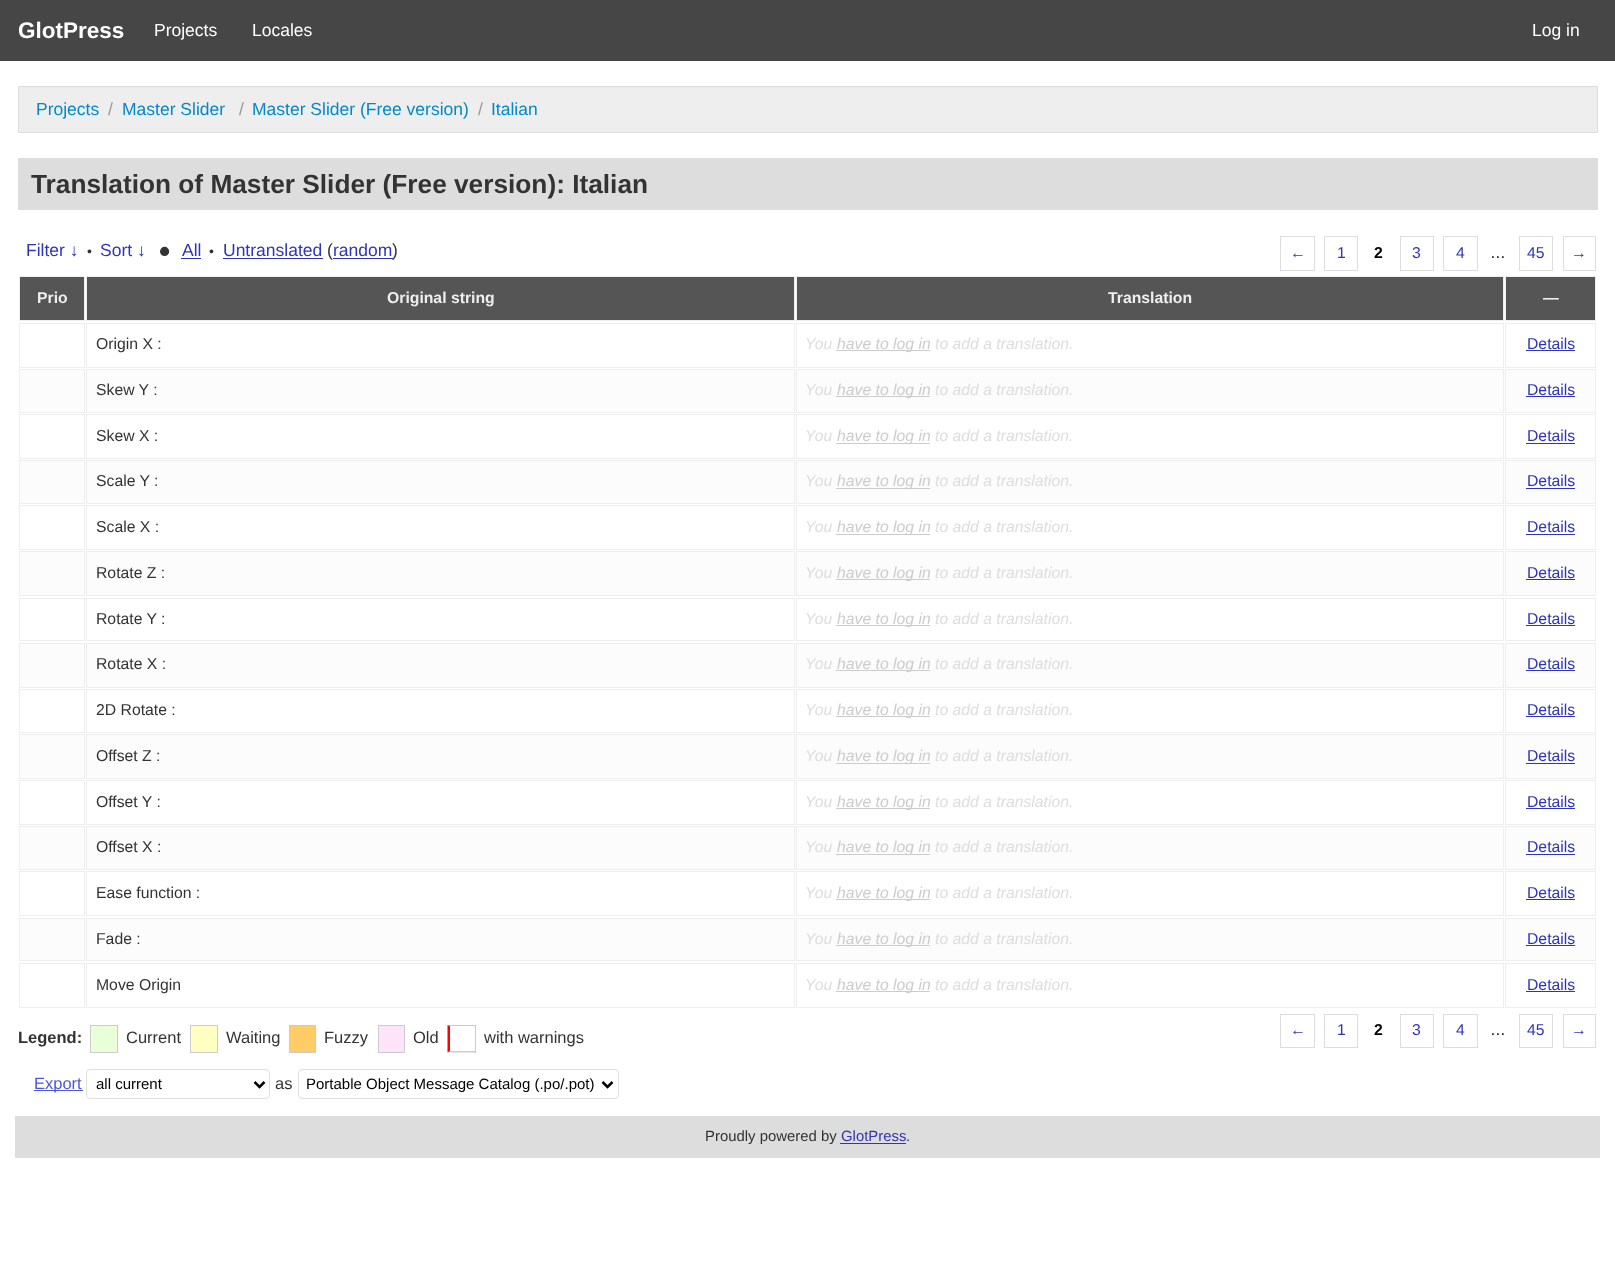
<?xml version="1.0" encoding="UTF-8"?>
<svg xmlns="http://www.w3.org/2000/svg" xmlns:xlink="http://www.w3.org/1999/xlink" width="1615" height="1271">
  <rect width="100%" height="100%" fill="#ffffff" />
  <rect width="1615" height="61" fill="#464646" />
  <rect x="18.5" y="86.5" width="1579" height="46" fill="#eeeeee" stroke="#dddddd" />
  <rect x="18" y="158" width="1580" height="52" fill="#dddddd" />
  <rect x="181" y="258" width="20" height="1" fill="#2f34b8" />
  <rect x="223" y="258" width="100" height="1" fill="#2f34b8" />
  <rect x="333" y="258" width="60" height="1" fill="#2f34b8" />
  <rect x="1280.5" y="236.5" width="34" height="34" fill="none" stroke="#dddddd" />
  <rect x="1324.5" y="236.5" width="33" height="34" fill="none" stroke="#dddddd" />
  <rect x="1400.5" y="236.5" width="33" height="34" fill="none" stroke="#dddddd" />
  <rect x="1443.5" y="236.5" width="34" height="34" fill="none" stroke="#dddddd" />
  <rect x="1519.5" y="236.5" width="33" height="34" fill="none" stroke="#dddddd" />
  <rect x="1563.5" y="236.5" width="32" height="34" fill="none" stroke="#dddddd" />
  <rect x="19.5" y="276.5" width="65" height="44" fill="#555555" stroke="#eeeeee" />
  <rect x="86.5" y="276.5" width="708" height="44" fill="#555555" stroke="#eeeeee" />
  <rect x="796.5" y="276.5" width="707" height="44" fill="#555555" stroke="#eeeeee" />
  <rect x="1505.5" y="276.5" width="90" height="44" fill="#555555" stroke="#eeeeee" />
  <rect x="19.5" y="323.5" width="65" height="44" fill="none" stroke="#eeeeee" />
  <rect x="86.5" y="323.5" width="708" height="44" fill="none" stroke="#eeeeee" />
  <rect x="796.5" y="323.5" width="707" height="44" fill="none" stroke="#eeeeee" />
  <rect x="836" y="350" width="94" height="1" fill="#cccccc" />
  <rect x="1505.5" y="323.5" width="90" height="44" fill="none" stroke="#eeeeee" />
  <rect x="1526" y="350" width="49" height="1" fill="#2f34b8" />
  <rect x="20" y="369" width="1575" height="44" fill="#fcfcfc" />
  <rect x="19.5" y="369.5" width="65" height="43" fill="none" stroke="#eeeeee" />
  <rect x="86.5" y="369.5" width="708" height="43" fill="none" stroke="#eeeeee" />
  <rect x="796.5" y="369.5" width="707" height="43" fill="none" stroke="#eeeeee" />
  <rect x="836" y="396" width="94" height="1" fill="#cccccc" />
  <rect x="1505.5" y="369.5" width="90" height="43" fill="none" stroke="#eeeeee" />
  <rect x="1526" y="396" width="49" height="1" fill="#2f34b8" />
  <rect x="19.5" y="414.5" width="65" height="44" fill="none" stroke="#eeeeee" />
  <rect x="86.5" y="414.5" width="708" height="44" fill="none" stroke="#eeeeee" />
  <rect x="796.5" y="414.5" width="707" height="44" fill="none" stroke="#eeeeee" />
  <rect x="836" y="443" width="94" height="1" fill="#cccccc" />
  <rect x="1505.5" y="414.5" width="90" height="44" fill="none" stroke="#eeeeee" />
  <rect x="1526" y="443" width="49" height="1" fill="#2f34b8" />
  <rect x="20" y="460" width="1575" height="44" fill="#fcfcfc" />
  <rect x="19.5" y="460.5" width="65" height="43" fill="none" stroke="#eeeeee" />
  <rect x="86.5" y="460.5" width="708" height="43" fill="none" stroke="#eeeeee" />
  <rect x="796.5" y="460.5" width="707" height="43" fill="none" stroke="#eeeeee" />
  <rect x="836" y="488" width="94" height="1" fill="#cccccc" />
  <rect x="1505.5" y="460.5" width="90" height="43" fill="none" stroke="#eeeeee" />
  <rect x="1526" y="488" width="49" height="1" fill="#2f34b8" />
  <rect x="19.5" y="505.5" width="65" height="44" fill="none" stroke="#eeeeee" />
  <rect x="86.5" y="505.5" width="708" height="44" fill="none" stroke="#eeeeee" />
  <rect x="796.5" y="505.5" width="707" height="44" fill="none" stroke="#eeeeee" />
  <rect x="836" y="534" width="94" height="1" fill="#cccccc" />
  <rect x="1505.5" y="505.5" width="90" height="44" fill="none" stroke="#eeeeee" />
  <rect x="1526" y="534" width="49" height="1" fill="#2f34b8" />
  <rect x="20" y="551" width="1575" height="45" fill="#fcfcfc" />
  <rect x="19.5" y="551.5" width="65" height="44" fill="none" stroke="#eeeeee" />
  <rect x="86.5" y="551.5" width="708" height="44" fill="none" stroke="#eeeeee" />
  <rect x="796.5" y="551.5" width="707" height="44" fill="none" stroke="#eeeeee" />
  <rect x="836" y="579" width="94" height="1" fill="#cccccc" />
  <rect x="1505.5" y="551.5" width="90" height="44" fill="none" stroke="#eeeeee" />
  <rect x="1526" y="579" width="49" height="1" fill="#2f34b8" />
  <rect x="19.5" y="598.5" width="65" height="42" fill="none" stroke="#eeeeee" />
  <rect x="86.5" y="598.5" width="708" height="42" fill="none" stroke="#eeeeee" />
  <rect x="796.5" y="598.5" width="707" height="42" fill="none" stroke="#eeeeee" />
  <rect x="836" y="625" width="94" height="1" fill="#cccccc" />
  <rect x="1505.5" y="598.5" width="90" height="42" fill="none" stroke="#eeeeee" />
  <rect x="1526" y="625" width="49" height="1" fill="#2f34b8" />
  <rect x="20" y="643" width="1575" height="45" fill="#fcfcfc" />
  <rect x="19.5" y="643.5" width="65" height="44" fill="none" stroke="#eeeeee" />
  <rect x="86.5" y="643.5" width="708" height="44" fill="none" stroke="#eeeeee" />
  <rect x="796.5" y="643.5" width="707" height="44" fill="none" stroke="#eeeeee" />
  <rect x="836" y="670" width="94" height="1" fill="#cccccc" />
  <rect x="1505.5" y="643.5" width="90" height="44" fill="none" stroke="#eeeeee" />
  <rect x="1526" y="670" width="49" height="1" fill="#2f34b8" />
  <rect x="19.5" y="689.5" width="65" height="43" fill="none" stroke="#eeeeee" />
  <rect x="86.5" y="689.5" width="708" height="43" fill="none" stroke="#eeeeee" />
  <rect x="796.5" y="689.5" width="707" height="43" fill="none" stroke="#eeeeee" />
  <rect x="836" y="716" width="94" height="1" fill="#cccccc" />
  <rect x="1505.5" y="689.5" width="90" height="43" fill="none" stroke="#eeeeee" />
  <rect x="1526" y="716" width="49" height="1" fill="#2f34b8" />
  <rect x="20" y="734" width="1575" height="45" fill="#fcfcfc" />
  <rect x="19.5" y="734.5" width="65" height="44" fill="none" stroke="#eeeeee" />
  <rect x="86.5" y="734.5" width="708" height="44" fill="none" stroke="#eeeeee" />
  <rect x="796.5" y="734.5" width="707" height="44" fill="none" stroke="#eeeeee" />
  <rect x="836" y="763" width="94" height="1" fill="#cccccc" />
  <rect x="1505.5" y="734.5" width="90" height="44" fill="none" stroke="#eeeeee" />
  <rect x="1526" y="763" width="49" height="1" fill="#2f34b8" />
  <rect x="19.5" y="780.5" width="65" height="44" fill="none" stroke="#eeeeee" />
  <rect x="86.5" y="780.5" width="708" height="44" fill="none" stroke="#eeeeee" />
  <rect x="796.5" y="780.5" width="707" height="44" fill="none" stroke="#eeeeee" />
  <rect x="836" y="808" width="94" height="1" fill="#cccccc" />
  <rect x="1505.5" y="780.5" width="90" height="44" fill="none" stroke="#eeeeee" />
  <rect x="1526" y="808" width="49" height="1" fill="#2f34b8" />
  <rect x="20" y="826" width="1575" height="44" fill="#fcfcfc" />
  <rect x="19.5" y="826.5" width="65" height="43" fill="none" stroke="#eeeeee" />
  <rect x="86.5" y="826.5" width="708" height="43" fill="none" stroke="#eeeeee" />
  <rect x="796.5" y="826.5" width="707" height="43" fill="none" stroke="#eeeeee" />
  <rect x="836" y="854" width="94" height="1" fill="#cccccc" />
  <rect x="1505.5" y="826.5" width="90" height="43" fill="none" stroke="#eeeeee" />
  <rect x="1526" y="854" width="49" height="1" fill="#2f34b8" />
  <rect x="19.5" y="871.5" width="65" height="44" fill="none" stroke="#eeeeee" />
  <rect x="86.5" y="871.5" width="708" height="44" fill="none" stroke="#eeeeee" />
  <rect x="796.5" y="871.5" width="707" height="44" fill="none" stroke="#eeeeee" />
  <rect x="836" y="899" width="94" height="1" fill="#cccccc" />
  <rect x="1505.5" y="871.5" width="90" height="44" fill="none" stroke="#eeeeee" />
  <rect x="1526" y="899" width="49" height="1" fill="#2f34b8" />
  <rect x="20" y="918" width="1575" height="43" fill="#fcfcfc" />
  <rect x="19.5" y="918.5" width="65" height="42" fill="none" stroke="#eeeeee" />
  <rect x="86.5" y="918.5" width="708" height="42" fill="none" stroke="#eeeeee" />
  <rect x="796.5" y="918.5" width="707" height="42" fill="none" stroke="#eeeeee" />
  <rect x="836" y="945" width="94" height="1" fill="#cccccc" />
  <rect x="1505.5" y="918.5" width="90" height="42" fill="none" stroke="#eeeeee" />
  <rect x="1526" y="945" width="49" height="1" fill="#2f34b8" />
  <rect x="19.5" y="963.5" width="65" height="44" fill="none" stroke="#eeeeee" />
  <rect x="86.5" y="963.5" width="708" height="44" fill="none" stroke="#eeeeee" />
  <rect x="796.5" y="963.5" width="707" height="44" fill="none" stroke="#eeeeee" />
  <rect x="836" y="991" width="94" height="1" fill="#cccccc" />
  <rect x="1505.5" y="963.5" width="90" height="44" fill="none" stroke="#eeeeee" />
  <rect x="1526" y="991" width="49" height="1" fill="#2f34b8" />
  <rect x="90.5" y="1025.5" width="27" height="27" fill="#e9ffd8" stroke="#cccccc" />
  <rect x="190.5" y="1025.5" width="27" height="27" fill="#ffffc2" stroke="#cccccc" />
  <rect x="289.5" y="1025.5" width="26" height="27" fill="#ffcc66" stroke="#cccccc" />
  <rect x="378.5" y="1025.5" width="26" height="27" fill="#fee4f8" stroke="#cccccc" />
  <path d="M 447.5 1025 h 28.5 l -1 1 h -25 z" fill="#cccccc" />
  <rect x="475" y="1025" width="1" height="28" fill="#cccccc" />
  <path d="M 476 1052.5 h -28.5 l 2.5 -1.5 h 25 z" fill="#cccccc" />
  <path d="M 447.5 1052.5 v -27.5 l 2.5 1 v 25 z" fill="#ff0000" />
  <rect x="1280.5" y="1014.5" width="34" height="33" fill="none" stroke="#dddddd" />
  <rect x="1324.5" y="1014.5" width="33" height="33" fill="none" stroke="#dddddd" />
  <rect x="1400.5" y="1014.5" width="33" height="33" fill="none" stroke="#dddddd" />
  <rect x="1443.5" y="1014.5" width="34" height="33" fill="none" stroke="#dddddd" />
  <rect x="1519.5" y="1014.5" width="33" height="33" fill="none" stroke="#dddddd" />
  <rect x="1563.5" y="1014.5" width="32" height="33" fill="none" stroke="#dddddd" />
  <rect x="34" y="1090" width="49" height="1" fill="#4d56dc" />
  <rect x="86.5" y="1069.5" width="183" height="29" rx="3.5" fill="none" stroke="#dfdfdf" />
  <path d="M 254.5 1082 l 5 5 l 5 -5" fill="none" stroke="#000000" stroke-width="2.5" />
  <rect x="298.5" y="1069.5" width="320" height="29" rx="3.5" fill="none" stroke="#dfdfdf" />
  <path d="M 602.5 1082 l 5 5 l 5 -5" fill="none" stroke="#000000" stroke-width="2.5" />
  <rect x="15" y="1116" width="1585" height="42" fill="#dddddd" />
  <rect x="840" y="1143" width="66" height="1" fill="#2f34b8" />
  <text x="18" y="38" style="font-family: Liberation Sans; font-size: 22.5px; font-weight: bold; fill: #ffffff">GlotPress</text>
  <text x="154" y="36" style="font-family: Liberation Sans; font-size: 17.5px; fill: #ffffff">Projects</text>
  <text x="252" y="36" style="font-family: Liberation Sans; font-size: 17.5px; fill: #ffffff">Locales</text>
  <text x="1532" y="36" style="font-family: Liberation Sans; font-size: 17.5px; fill: #ffffff">Log in</text>
  <text x="36" y="115" style="font-family: Liberation Sans; font-size: 17.5px; fill: #0088cc">Projects</text>
  <text x="108" y="115" style="font-family: Liberation Sans; font-size: 17.5px; fill: #999999">/</text>
  <text x="122" y="115" style="font-family: Liberation Sans; font-size: 17.5px; fill: #0088cc">Master Slider</text>
  <text x="239" y="115" style="font-family: Liberation Sans; font-size: 17.5px; fill: #999999">/</text>
  <text x="252" y="115" style="font-family: Liberation Sans; font-size: 17.5px; fill: #0088cc">Master Slider (Free version)</text>
  <text x="478" y="115" style="font-family: Liberation Sans; font-size: 17.5px; fill: #999999">/</text>
  <text x="491" y="115" style="font-family: Liberation Sans; font-size: 17.5px; fill: #0088cc">Italian</text>
  <text x="31" y="193" style="font-family: Liberation Sans; font-size: 26.25px; font-weight: bold; fill: #333333">Translation of Master Slider (Free version): Italian</text>
  <text x="26" y="256" style="font-family: Liberation Sans; font-size: 17.5px; fill: #2f34b8">Filter ↓</text>
  <text x="87" y="256" style="font-family: Liberation Sans; font-size: 14px; fill: #333333">•</text>
  <text x="100" y="256" style="font-family: Liberation Sans; font-size: 17.5px; fill: #2f34b8">Sort ↓</text>
  <text x="159" y="262" style="font-family: Liberation Sans; font-size: 32px; font-weight: bold; fill: #333333">•</text>
  <text x="182" y="256" style="font-family: Liberation Sans; font-size: 17.5px; fill: #2f34b8">All</text>
  <text x="209" y="256" style="font-family: Liberation Sans; font-size: 14px; fill: #333333">•</text>
  <text x="223" y="256" style="font-family: Liberation Sans; font-size: 17.5px; fill: #2f34b8">Untranslated</text>
  <text x="327" y="256" style="font-family: Liberation Sans; font-size: 17.5px; fill: #333333">(</text>
  <text x="333" y="256" style="font-family: Liberation Sans; font-size: 17.5px; fill: #2f34b8">random</text>
  <text x="392" y="256" style="font-family: Liberation Sans; font-size: 17.5px; fill: #333333">)</text>
  <text x="1290" y="258" style="font-family: Liberation Sans; font-size: 15.75px; fill: #2f34b8">←</text>
  <text x="1337" y="258" style="font-family: Liberation Sans; font-size: 15.75px; fill: #2f34b8">1</text>
  <text x="1374" y="258" style="font-family: Liberation Sans; font-size: 15.75px; font-weight: bold; fill: #000000">2</text>
  <text x="1412" y="258" style="font-family: Liberation Sans; font-size: 15.75px; fill: #2f34b8">3</text>
  <text x="1456" y="258" style="font-family: Liberation Sans; font-size: 15.75px; fill: #2f34b8">4</text>
  <text x="1490" y="258" style="font-family: Liberation Sans; font-size: 15.75px; fill: #000000">…</text>
  <text x="1527" y="258" style="font-family: Liberation Sans; font-size: 15.75px; fill: #2f34b8">45</text>
  <text x="1571" y="258" style="font-family: Liberation Sans; font-size: 15.75px; fill: #2f34b8">→</text>
  <text x="37" y="303" style="font-family: Liberation Sans; font-size: 15.75px; font-weight: bold; fill: #eeeeee">Prio</text>
  <text x="387" y="303" style="font-family: Liberation Sans; font-size: 15.75px; font-weight: bold; fill: #eeeeee">Original string</text>
  <text x="1108" y="303" style="font-family: Liberation Sans; font-size: 15.75px; font-weight: bold; fill: #eeeeee">Translation</text>
  <text x="1543" y="303" style="font-family: Liberation Sans; font-size: 15.75px; font-weight: bold; fill: #eeeeee">—</text>
  <text x="96" y="349" style="font-family: Liberation Sans; font-size: 15.75px; fill: #333333">Origin X :</text>
  <text x="805" y="349" style="font-family: Liberation Sans; font-size: 15.75px; font-style: italic; fill: #dddddd">You</text>
  <text x="837" y="349" style="font-family: Liberation Sans; font-size: 15.75px; font-style: italic; fill: #cccccc">have to log in</text>
  <text x="935" y="349" style="font-family: Liberation Sans; font-size: 15.75px; font-style: italic; fill: #dddddd">to add a translation.</text>
  <text x="1527" y="349" style="font-family: Liberation Sans; font-size: 15.75px; fill: #2f34b8">Details</text>
  <text x="96" y="395" style="font-family: Liberation Sans; font-size: 15.75px; fill: #333333">Skew Y :</text>
  <text x="805" y="395" style="font-family: Liberation Sans; font-size: 15.75px; font-style: italic; fill: #dddddd">You</text>
  <text x="837" y="395" style="font-family: Liberation Sans; font-size: 15.75px; font-style: italic; fill: #cccccc">have to log in</text>
  <text x="935" y="395" style="font-family: Liberation Sans; font-size: 15.75px; font-style: italic; fill: #dddddd">to add a translation.</text>
  <text x="1527" y="395" style="font-family: Liberation Sans; font-size: 15.75px; fill: #2f34b8">Details</text>
  <text x="96" y="441" style="font-family: Liberation Sans; font-size: 15.75px; fill: #333333">Skew X :</text>
  <text x="805" y="441" style="font-family: Liberation Sans; font-size: 15.75px; font-style: italic; fill: #dddddd">You</text>
  <text x="837" y="441" style="font-family: Liberation Sans; font-size: 15.75px; font-style: italic; fill: #cccccc">have to log in</text>
  <text x="935" y="441" style="font-family: Liberation Sans; font-size: 15.75px; font-style: italic; fill: #dddddd">to add a translation.</text>
  <text x="1527" y="441" style="font-family: Liberation Sans; font-size: 15.75px; fill: #2f34b8">Details</text>
  <text x="96" y="486" style="font-family: Liberation Sans; font-size: 15.75px; fill: #333333">Scale Y :</text>
  <text x="805" y="486" style="font-family: Liberation Sans; font-size: 15.75px; font-style: italic; fill: #dddddd">You</text>
  <text x="837" y="486" style="font-family: Liberation Sans; font-size: 15.75px; font-style: italic; fill: #cccccc">have to log in</text>
  <text x="935" y="486" style="font-family: Liberation Sans; font-size: 15.75px; font-style: italic; fill: #dddddd">to add a translation.</text>
  <text x="1527" y="486" style="font-family: Liberation Sans; font-size: 15.75px; fill: #2f34b8">Details</text>
  <text x="96" y="532" style="font-family: Liberation Sans; font-size: 15.75px; fill: #333333">Scale X :</text>
  <text x="805" y="532" style="font-family: Liberation Sans; font-size: 15.75px; font-style: italic; fill: #dddddd">You</text>
  <text x="837" y="532" style="font-family: Liberation Sans; font-size: 15.75px; font-style: italic; fill: #cccccc">have to log in</text>
  <text x="935" y="532" style="font-family: Liberation Sans; font-size: 15.75px; font-style: italic; fill: #dddddd">to add a translation.</text>
  <text x="1527" y="532" style="font-family: Liberation Sans; font-size: 15.75px; fill: #2f34b8">Details</text>
  <text x="96" y="578" style="font-family: Liberation Sans; font-size: 15.75px; fill: #333333">Rotate Z :</text>
  <text x="805" y="578" style="font-family: Liberation Sans; font-size: 15.75px; font-style: italic; fill: #dddddd">You</text>
  <text x="837" y="578" style="font-family: Liberation Sans; font-size: 15.75px; font-style: italic; fill: #cccccc">have to log in</text>
  <text x="935" y="578" style="font-family: Liberation Sans; font-size: 15.75px; font-style: italic; fill: #dddddd">to add a translation.</text>
  <text x="1527" y="578" style="font-family: Liberation Sans; font-size: 15.75px; fill: #2f34b8">Details</text>
  <text x="96" y="624" style="font-family: Liberation Sans; font-size: 15.75px; fill: #333333">Rotate Y :</text>
  <text x="805" y="624" style="font-family: Liberation Sans; font-size: 15.75px; font-style: italic; fill: #dddddd">You</text>
  <text x="837" y="624" style="font-family: Liberation Sans; font-size: 15.75px; font-style: italic; fill: #cccccc">have to log in</text>
  <text x="935" y="624" style="font-family: Liberation Sans; font-size: 15.75px; font-style: italic; fill: #dddddd">to add a translation.</text>
  <text x="1527" y="624" style="font-family: Liberation Sans; font-size: 15.75px; fill: #2f34b8">Details</text>
  <text x="96" y="669" style="font-family: Liberation Sans; font-size: 15.75px; fill: #333333">Rotate X :</text>
  <text x="805" y="669" style="font-family: Liberation Sans; font-size: 15.75px; font-style: italic; fill: #dddddd">You</text>
  <text x="837" y="669" style="font-family: Liberation Sans; font-size: 15.75px; font-style: italic; fill: #cccccc">have to log in</text>
  <text x="935" y="669" style="font-family: Liberation Sans; font-size: 15.75px; font-style: italic; fill: #dddddd">to add a translation.</text>
  <text x="1527" y="669" style="font-family: Liberation Sans; font-size: 15.75px; fill: #2f34b8">Details</text>
  <text x="96" y="715" style="font-family: Liberation Sans; font-size: 15.75px; fill: #333333">2D Rotate :</text>
  <text x="805" y="715" style="font-family: Liberation Sans; font-size: 15.75px; font-style: italic; fill: #dddddd">You</text>
  <text x="837" y="715" style="font-family: Liberation Sans; font-size: 15.75px; font-style: italic; fill: #cccccc">have to log in</text>
  <text x="935" y="715" style="font-family: Liberation Sans; font-size: 15.75px; font-style: italic; fill: #dddddd">to add a translation.</text>
  <text x="1527" y="715" style="font-family: Liberation Sans; font-size: 15.75px; fill: #2f34b8">Details</text>
  <text x="96" y="761" style="font-family: Liberation Sans; font-size: 15.75px; fill: #333333">Offset Z :</text>
  <text x="805" y="761" style="font-family: Liberation Sans; font-size: 15.75px; font-style: italic; fill: #dddddd">You</text>
  <text x="837" y="761" style="font-family: Liberation Sans; font-size: 15.75px; font-style: italic; fill: #cccccc">have to log in</text>
  <text x="935" y="761" style="font-family: Liberation Sans; font-size: 15.75px; font-style: italic; fill: #dddddd">to add a translation.</text>
  <text x="1527" y="761" style="font-family: Liberation Sans; font-size: 15.75px; fill: #2f34b8">Details</text>
  <text x="96" y="807" style="font-family: Liberation Sans; font-size: 15.75px; fill: #333333">Offset Y :</text>
  <text x="805" y="807" style="font-family: Liberation Sans; font-size: 15.75px; font-style: italic; fill: #dddddd">You</text>
  <text x="837" y="807" style="font-family: Liberation Sans; font-size: 15.75px; font-style: italic; fill: #cccccc">have to log in</text>
  <text x="935" y="807" style="font-family: Liberation Sans; font-size: 15.75px; font-style: italic; fill: #dddddd">to add a translation.</text>
  <text x="1527" y="807" style="font-family: Liberation Sans; font-size: 15.75px; fill: #2f34b8">Details</text>
  <text x="96" y="852" style="font-family: Liberation Sans; font-size: 15.75px; fill: #333333">Offset X :</text>
  <text x="805" y="852" style="font-family: Liberation Sans; font-size: 15.75px; font-style: italic; fill: #dddddd">You</text>
  <text x="837" y="852" style="font-family: Liberation Sans; font-size: 15.75px; font-style: italic; fill: #cccccc">have to log in</text>
  <text x="935" y="852" style="font-family: Liberation Sans; font-size: 15.75px; font-style: italic; fill: #dddddd">to add a translation.</text>
  <text x="1527" y="852" style="font-family: Liberation Sans; font-size: 15.75px; fill: #2f34b8">Details</text>
  <text x="96" y="898" style="font-family: Liberation Sans; font-size: 15.75px; fill: #333333">Ease function :</text>
  <text x="805" y="898" style="font-family: Liberation Sans; font-size: 15.75px; font-style: italic; fill: #dddddd">You</text>
  <text x="837" y="898" style="font-family: Liberation Sans; font-size: 15.75px; font-style: italic; fill: #cccccc">have to log in</text>
  <text x="935" y="898" style="font-family: Liberation Sans; font-size: 15.75px; font-style: italic; fill: #dddddd">to add a translation.</text>
  <text x="1527" y="898" style="font-family: Liberation Sans; font-size: 15.75px; fill: #2f34b8">Details</text>
  <text x="96" y="944" style="font-family: Liberation Sans; font-size: 15.75px; fill: #333333">Fade :</text>
  <text x="805" y="944" style="font-family: Liberation Sans; font-size: 15.75px; font-style: italic; fill: #dddddd">You</text>
  <text x="837" y="944" style="font-family: Liberation Sans; font-size: 15.75px; font-style: italic; fill: #cccccc">have to log in</text>
  <text x="935" y="944" style="font-family: Liberation Sans; font-size: 15.75px; font-style: italic; fill: #dddddd">to add a translation.</text>
  <text x="1527" y="944" style="font-family: Liberation Sans; font-size: 15.75px; fill: #2f34b8">Details</text>
  <text x="96" y="990" style="font-family: Liberation Sans; font-size: 15.75px; fill: #333333">Move Origin</text>
  <text x="805" y="990" style="font-family: Liberation Sans; font-size: 15.75px; font-style: italic; fill: #dddddd">You</text>
  <text x="837" y="990" style="font-family: Liberation Sans; font-size: 15.75px; font-style: italic; fill: #cccccc">have to log in</text>
  <text x="935" y="990" style="font-family: Liberation Sans; font-size: 15.75px; font-style: italic; fill: #dddddd">to add a translation.</text>
  <text x="1527" y="990" style="font-family: Liberation Sans; font-size: 15.75px; fill: #2f34b8">Details</text>
  <text x="18" y="1043" style="font-family: Liberation Sans; font-size: 16.5px; font-weight: bold; fill: #333333">Legend:</text>
  <text x="126" y="1043" style="font-family: Liberation Sans; font-size: 16.5px; fill: #333333">Current</text>
  <text x="226" y="1043" style="font-family: Liberation Sans; font-size: 16.5px; fill: #333333">Waiting</text>
  <text x="324" y="1043" style="font-family: Liberation Sans; font-size: 16.5px; fill: #333333">Fuzzy</text>
  <text x="413" y="1043" style="font-family: Liberation Sans; font-size: 16.5px; fill: #333333">Old</text>
  <text x="484" y="1043" style="font-family: Liberation Sans; font-size: 16.5px; fill: #333333">with warnings</text>
  <text x="1290" y="1035" style="font-family: Liberation Sans; font-size: 15.75px; fill: #2f34b8">←</text>
  <text x="1337" y="1035" style="font-family: Liberation Sans; font-size: 15.75px; fill: #2f34b8">1</text>
  <text x="1374" y="1035" style="font-family: Liberation Sans; font-size: 15.75px; font-weight: bold; fill: #000000">2</text>
  <text x="1412" y="1035" style="font-family: Liberation Sans; font-size: 15.75px; fill: #2f34b8">3</text>
  <text x="1456" y="1035" style="font-family: Liberation Sans; font-size: 15.75px; fill: #2f34b8">4</text>
  <text x="1490" y="1035" style="font-family: Liberation Sans; font-size: 15.75px; fill: #000000">…</text>
  <text x="1527" y="1035" style="font-family: Liberation Sans; font-size: 15.75px; fill: #2f34b8">45</text>
  <text x="1571" y="1035" style="font-family: Liberation Sans; font-size: 15.75px; fill: #2f34b8">→</text>
  <text x="34" y="1089" style="font-family: Liberation Sans; font-size: 16.5px; fill: #4d56dc">Export</text>
  <text x="96" y="1089" style="font-family: Liberation Sans; font-size: 15px; fill: #000000">all current</text>
  <text x="275" y="1089" style="font-family: Liberation Sans; font-size: 16.5px; fill: #333333">as</text>
  <text x="306" y="1089" style="font-family: Liberation Sans; font-size: 15px; fill: #000000">Portable Object Message Catalog (.po/.pot)</text>
  <text x="705" y="1141" style="font-family: Liberation Sans; font-size: 14.9px; fill: #333333">Proudly powered by</text>
  <text x="841" y="1141" style="font-family: Liberation Sans; font-size: 14.9px; fill: #2f34b8">GlotPress</text>
  <text x="906" y="1141" style="font-family: Liberation Sans; font-size: 14.9px; fill: #333333">.</text>
</svg>
